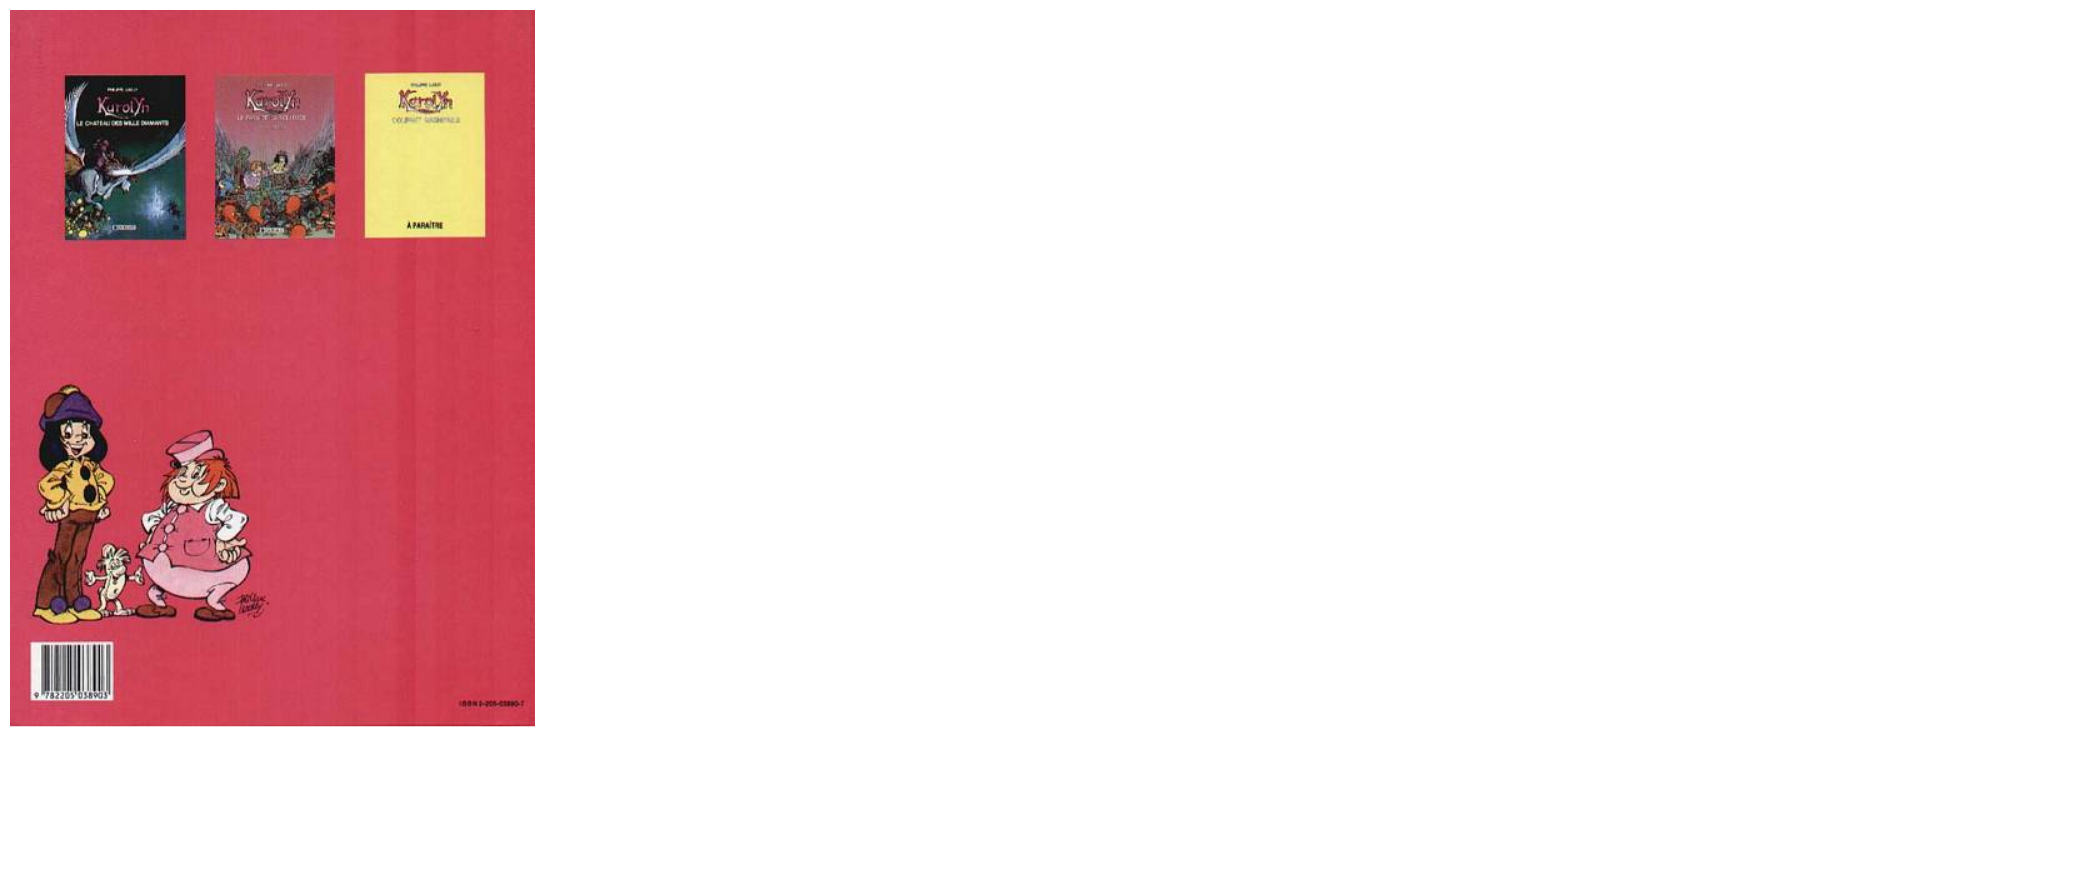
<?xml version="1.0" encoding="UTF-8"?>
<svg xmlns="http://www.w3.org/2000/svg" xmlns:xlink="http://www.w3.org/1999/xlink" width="2089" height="871">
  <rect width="100%" height="100%" fill="#ffffff" />
  <image x="10" y="10" width="525" height="717" xlink:href="image1.png" />
</svg>
